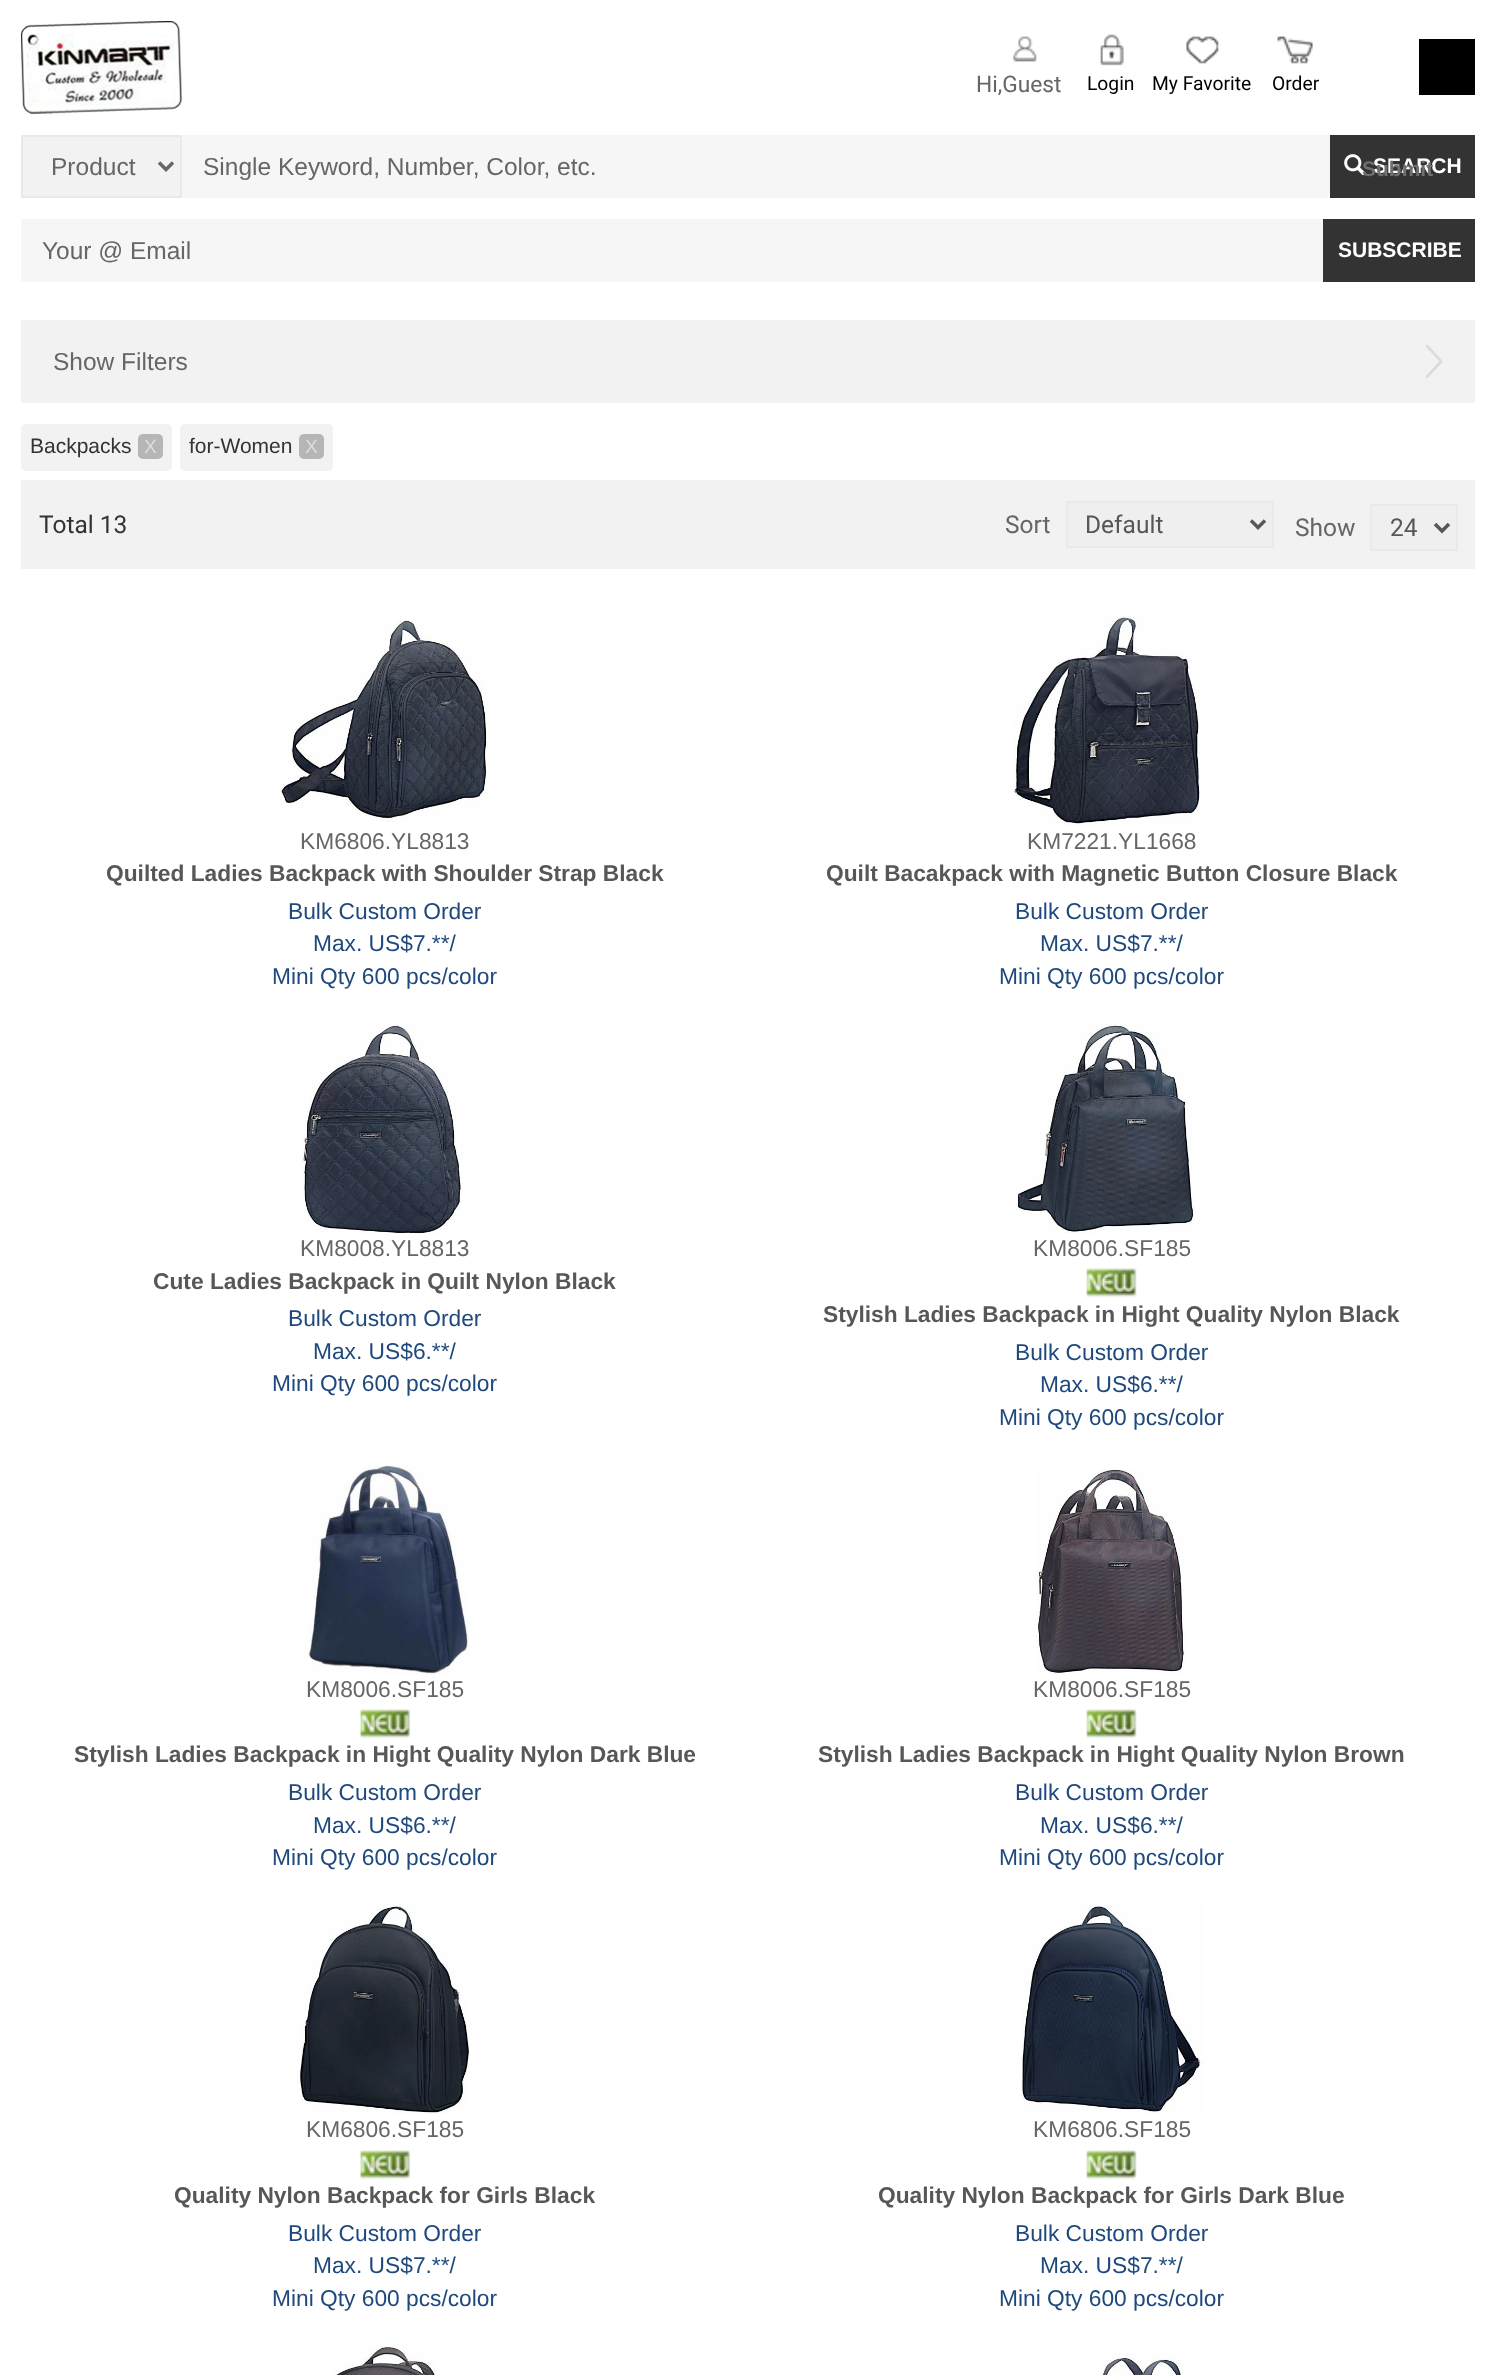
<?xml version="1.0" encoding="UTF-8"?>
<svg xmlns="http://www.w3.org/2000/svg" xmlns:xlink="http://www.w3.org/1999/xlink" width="1496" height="2375">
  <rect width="100%" height="100%" fill="#ffffff" />
  <image x="21" y="21" width="161" height="93" xlink:href="image1.png" />
  <image x="1012" y="36" width="25" height="26" xlink:href="image2.png" />
  <image x="1100" y="34" width="24" height="32" xlink:href="image3.png" />
  <image x="1186" y="36" width="33" height="28" xlink:href="image4.png" />
  <image x="1277" y="36" width="36" height="28" xlink:href="image5.png" />
  <rect x="1419" y="39" width="56" height="56" fill="#000000" />
  <rect x="22" y="136" width="159" height="61" fill="#f2f2f2" stroke="#e9e9e9" stroke-width="2" />
  <path d="M 159 162.5 l 7 7 l 7 -7" fill="none" stroke="#666666" stroke-width="3.5" />
  <rect x="182" y="135" width="1148" height="63" fill="#f6f6f6" />
  <rect x="1330" y="135" width="145" height="63" fill="#333333" />
  <image x="1344" y="154" width="22" height="22" xlink:href="image6.png" />
  <rect x="21" y="219" width="1302" height="63" fill="#f6f6f6" />
  <rect x="1323" y="219" width="152" height="63" fill="#333333" />
  <rect x="21" y="320" width="1454" height="83" fill="#f2f2f2" />
  <image x="1426" y="344" width="17" height="34" xlink:href="image7.png" />
  <rect x="21" y="424" width="151" height="47" rx="5" fill="#f2f2f2" />
  <rect x="138" y="434" width="25" height="25" rx="5" fill="#b6b6b6" />
  <rect x="180" y="424" width="153" height="47" rx="5" fill="#f2f2f2" />
  <rect x="299" y="434" width="25" height="25" rx="5" fill="#b6b6b6" />
  <rect x="21" y="480" width="1454" height="89" fill="#f2f2f2" />
  <rect x="1067" y="502" width="206" height="45" fill="#efefef" stroke="#e9e9e9" stroke-width="2" />
  <path d="M 1251 520.5 l 7 7 l 7 -7" fill="none" stroke="#585757" stroke-width="3.5" />
  <rect x="1371" y="505" width="86" height="45" fill="#efefef" stroke="#e9e9e9" stroke-width="2" />
  <path d="M 1435 524 l 7 7 l 7 -7" fill="none" stroke="#585757" stroke-width="3.5" />
  <image x="280" y="619" width="209" height="203" xlink:href="image8.png" />
  <image x="1013" y="616" width="187" height="210" xlink:href="image9.png" />
  <image x="301" y="1024" width="162" height="210" xlink:href="image10.png" />
  <image x="1015" y="1024" width="180" height="210" xlink:href="image11.png" />
  <image x="1086" y="1268" width="51" height="30" xlink:href="image12.png" />
  <image x="305" y="1465" width="164" height="210" xlink:href="image13.png" />
  <image x="360" y="1709" width="50" height="30" xlink:href="image14.png" />
  <image x="1036" y="1469" width="150" height="206" xlink:href="image15.png" />
  <image x="1086" y="1709" width="51" height="30" xlink:href="image12.png" />
  <image x="297" y="1904" width="172" height="210" xlink:href="image16.png" />
  <image x="360" y="2150" width="50" height="30" xlink:href="image14.png" />
  <image x="1022" y="1904" width="182" height="210" xlink:href="image17.png" />
  <image x="1086" y="2150" width="51" height="30" xlink:href="image12.png" />
  <image x="331" y="2345" width="104" height="30" xlink:href="image18.png" />
  <image x="1100" y="2353" width="83" height="22" xlink:href="image19.png" />
  <text x="976" y="92" style="font-family: Roboto; font-size: 22.75px; fill: #666666">Hi,Guest</text>
  <text x="1087" y="90" style="font-family: Roboto; font-size: 19.25px; fill: #000000">Login</text>
  <text x="1152" y="90" style="font-family: Roboto; font-size: 19.25px; fill: #000000">My Favorite</text>
  <text x="1272" y="90" style="font-family: Roboto; font-size: 19.25px; fill: #000000">Order</text>
  <text x="51" y="175" style="font-family: Liberation Sans; font-size: 24.5px; fill: #666666">Product</text>
  <text x="203" y="175" style="font-family: Liberation Sans; font-size: 24.5px; fill: #666666">Single Keyword, Number, Color, etc.</text>
  <text x="1373" y="173" style="font-family: Liberation Sans; font-size: 21px; font-weight: bold; fill: #ffffff">SEARCH</text>
  <text x="1362" y="176" style="font-family: Liberation Sans; font-size: 21px; font-weight: bold; fill: #6f6f6f">Submit</text>
  <text x="42" y="259" style="font-family: Liberation Sans; font-size: 24.5px; fill: #666666">Your @ Email</text>
  <text x="1338" y="257" style="font-family: Liberation Sans; font-size: 21px; font-weight: bold; fill: #ffffff">SUBSCRIBE</text>
  <text x="53" y="370" style="font-family: Liberation Sans; font-size: 24.5px; fill: #666666">Show Filters</text>
  <text x="30" y="453" style="font-family: Liberation Sans; font-size: 21px; fill: #333333">Backpacks</text>
  <text x="144" y="453" style="font-family: Liberation Sans; font-size: 19.25px; fill: #dddddd">X</text>
  <text x="189" y="453" style="font-family: Liberation Sans; font-size: 21px; fill: #333333">for-Women</text>
  <text x="305" y="453" style="font-family: Liberation Sans; font-size: 19.25px; fill: #dddddd">X</text>
  <text x="39" y="533" style="font-family: Roboto; font-size: 24.5px; fill: #333333">Total 13</text>
  <text x="1005" y="533" style="font-family: Roboto; font-size: 24.5px; fill: #666666">Sort</text>
  <text x="1085" y="533" style="font-family: Roboto; font-size: 24.5px; fill: #585757">Default</text>
  <text x="1295" y="536" style="font-family: Roboto; font-size: 24.5px; fill: #666666">Show</text>
  <text x="1390" y="536" style="font-family: Roboto; font-size: 24.5px; fill: #585757">24</text>
  <text x="300" y="849" style="font-family: Liberation Sans; font-size: 22.75px; fill: #666666">KM6806.YL8813</text>
  <text x="106" y="881" style="font-family: Liberation Sans; font-size: 22.75px; font-weight: bold; fill: #585757">Quilted Ladies Backpack with Shoulder Strap Black</text>
  <text x="288" y="919" style="font-family: Liberation Sans; font-size: 22.75px; fill: #1f497d">Bulk Custom Order</text>
  <text x="313" y="951" style="font-family: Liberation Sans; font-size: 22.75px; fill: #1f497d">Max. US$7.**/</text>
  <text x="272" y="984" style="font-family: Liberation Sans; font-size: 22.75px; fill: #1f497d">Mini Qty 600 pcs/color</text>
  <text x="1027" y="849" style="font-family: Liberation Sans; font-size: 22.75px; fill: #666666">KM7221.YL1668</text>
  <text x="826" y="881" style="font-family: Liberation Sans; font-size: 22.75px; font-weight: bold; fill: #585757">Quilt Bacakpack with Magnetic Button Closure Black</text>
  <text x="1015" y="919" style="font-family: Liberation Sans; font-size: 22.75px; fill: #1f497d">Bulk Custom Order</text>
  <text x="1040" y="951" style="font-family: Liberation Sans; font-size: 22.75px; fill: #1f497d">Max. US$7.**/</text>
  <text x="999" y="984" style="font-family: Liberation Sans; font-size: 22.75px; fill: #1f497d">Mini Qty 600 pcs/color</text>
  <text x="300" y="1256" style="font-family: Liberation Sans; font-size: 22.75px; fill: #666666">KM8008.YL8813</text>
  <text x="153" y="1289" style="font-family: Liberation Sans; font-size: 22.75px; font-weight: bold; fill: #585757">Cute Ladies Backpack in Quilt Nylon Black</text>
  <text x="288" y="1326" style="font-family: Liberation Sans; font-size: 22.75px; fill: #1f497d">Bulk Custom Order</text>
  <text x="313" y="1359" style="font-family: Liberation Sans; font-size: 22.75px; fill: #1f497d">Max. US$6.**/</text>
  <text x="272" y="1391" style="font-family: Liberation Sans; font-size: 22.75px; fill: #1f497d">Mini Qty 600 pcs/color</text>
  <text x="1033" y="1256" style="font-family: Liberation Sans; font-size: 22.75px; fill: #666666">KM8006.SF185</text>
  <text x="823" y="1322" style="font-family: Liberation Sans; font-size: 22.75px; font-weight: bold; fill: #585757">Stylish Ladies Backpack in Hight Quality Nylon Black</text>
  <text x="1015" y="1360" style="font-family: Liberation Sans; font-size: 22.75px; fill: #1f497d">Bulk Custom Order</text>
  <text x="1040" y="1392" style="font-family: Liberation Sans; font-size: 22.75px; fill: #1f497d">Max. US$6.**/</text>
  <text x="999" y="1425" style="font-family: Liberation Sans; font-size: 22.75px; fill: #1f497d">Mini Qty 600 pcs/color</text>
  <text x="306" y="1697" style="font-family: Liberation Sans; font-size: 22.75px; fill: #666666">KM8006.SF185</text>
  <text x="74" y="1762" style="font-family: Liberation Sans; font-size: 22.75px; font-weight: bold; fill: #585757">Stylish Ladies Backpack in Hight Quality Nylon Dark Blue</text>
  <text x="288" y="1800" style="font-family: Liberation Sans; font-size: 22.75px; fill: #1f497d">Bulk Custom Order</text>
  <text x="313" y="1833" style="font-family: Liberation Sans; font-size: 22.75px; fill: #1f497d">Max. US$6.**/</text>
  <text x="272" y="1865" style="font-family: Liberation Sans; font-size: 22.75px; fill: #1f497d">Mini Qty 600 pcs/color</text>
  <text x="1033" y="1697" style="font-family: Liberation Sans; font-size: 22.75px; fill: #666666">KM8006.SF185</text>
  <text x="818" y="1762" style="font-family: Liberation Sans; font-size: 22.75px; font-weight: bold; fill: #585757">Stylish Ladies Backpack in Hight Quality Nylon Brown</text>
  <text x="1015" y="1800" style="font-family: Liberation Sans; font-size: 22.75px; fill: #1f497d">Bulk Custom Order</text>
  <text x="1040" y="1833" style="font-family: Liberation Sans; font-size: 22.75px; fill: #1f497d">Max. US$6.**/</text>
  <text x="999" y="1865" style="font-family: Liberation Sans; font-size: 22.75px; fill: #1f497d">Mini Qty 600 pcs/color</text>
  <text x="306" y="2137" style="font-family: Liberation Sans; font-size: 22.75px; fill: #666666">KM6806.SF185</text>
  <text x="174" y="2203" style="font-family: Liberation Sans; font-size: 22.75px; font-weight: bold; fill: #585757">Quality Nylon Backpack for Girls Black</text>
  <text x="288" y="2241" style="font-family: Liberation Sans; font-size: 22.75px; fill: #1f497d">Bulk Custom Order</text>
  <text x="313" y="2273" style="font-family: Liberation Sans; font-size: 22.75px; fill: #1f497d">Max. US$7.**/</text>
  <text x="272" y="2306" style="font-family: Liberation Sans; font-size: 22.75px; fill: #1f497d">Mini Qty 600 pcs/color</text>
  <text x="1033" y="2137" style="font-family: Liberation Sans; font-size: 22.75px; fill: #666666">KM6806.SF185</text>
  <text x="878" y="2203" style="font-family: Liberation Sans; font-size: 22.75px; font-weight: bold; fill: #585757">Quality Nylon Backpack for Girls Dark Blue</text>
  <text x="1015" y="2241" style="font-family: Liberation Sans; font-size: 22.75px; fill: #1f497d">Bulk Custom Order</text>
  <text x="1040" y="2273" style="font-family: Liberation Sans; font-size: 22.75px; fill: #1f497d">Max. US$7.**/</text>
  <text x="999" y="2306" style="font-family: Liberation Sans; font-size: 22.75px; fill: #1f497d">Mini Qty 600 pcs/color</text>
</svg>
